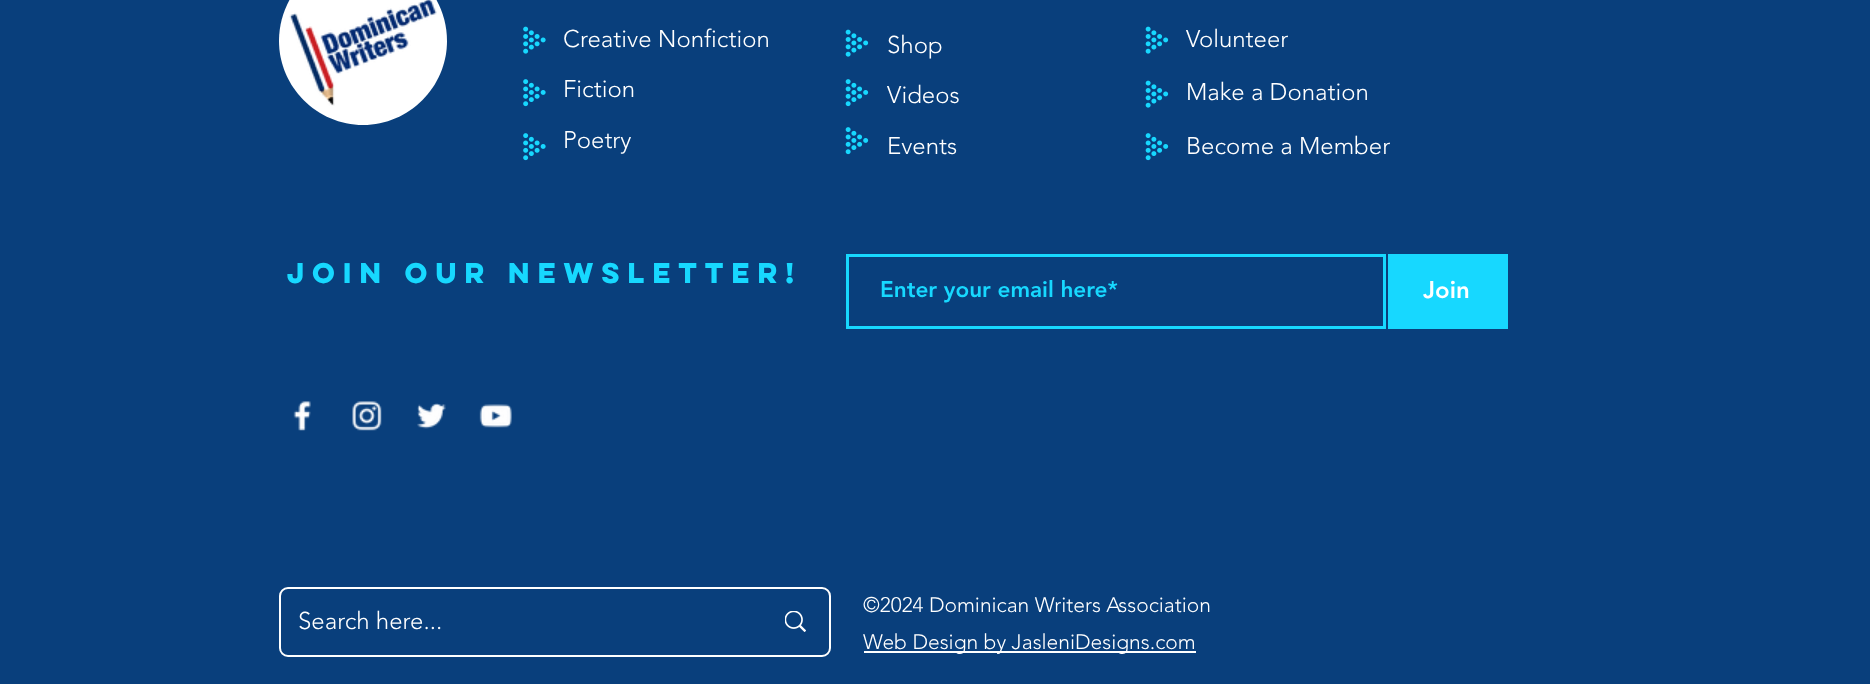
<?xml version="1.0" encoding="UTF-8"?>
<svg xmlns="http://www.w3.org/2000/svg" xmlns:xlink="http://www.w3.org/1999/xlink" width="1870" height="684">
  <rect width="100%" height="100%" fill="#093f7c" />
  <path d="M 447 41 c 0 46 -38 84 -84 84 c -46 0 -84 -38 -84 -84 c 0 -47 38 -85 84 -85 c 46 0 84 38 84 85 z" fill="#ffffff" />
  <image x="289" y="0" width="148" height="106" xlink:href="image1.png" />
  <image x="523" y="26" width="23" height="28" xlink:href="image2.png" />
  <image x="523" y="79" width="23" height="28" xlink:href="image3.png" />
  <image x="523" y="133" width="23" height="28" xlink:href="image3.png" />
  <image x="845" y="29" width="24" height="28" xlink:href="image4.png" />
  <image x="845" y="79" width="24" height="28" xlink:href="image5.png" />
  <image x="845" y="127" width="24" height="28" xlink:href="image5.png" />
  <image x="1145" y="26" width="24" height="28" xlink:href="image4.png" />
  <image x="1145" y="80" width="24" height="28" xlink:href="image4.png" />
  <image x="1145" y="133" width="24" height="28" xlink:href="image5.png" />
  <rect x="847.5" y="255.5" width="537" height="72" fill="none" stroke="#17d8ff" stroke-width="3" />
  <rect x="1388" y="254" width="120" height="75" fill="#17d8ff" />
  <image x="293" y="401" width="18" height="30" xlink:href="image6.png" />
  <image x="352" y="401" width="30" height="30" xlink:href="image7.png" />
  <image x="417" y="403" width="29" height="26" xlink:href="image8.png" />
  <image x="479" y="404" width="33" height="24" xlink:href="image9.png" />
  <rect x="280" y="588" width="550" height="68" rx="8" fill="none" stroke="#ffffff" stroke-width="2" />
  <image x="785" y="611" width="21" height="21" xlink:href="image10.png" />
  <rect x="864" y="651" width="332" height="2" fill="#ffffff" />
  <text x="563" y="47" style="font-family: 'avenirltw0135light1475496'; font-size: 24px; font-weight: 300; fill: #ffffff">Creative Nonfiction</text>
  <text x="563" y="97" style="font-family: 'avenirltw0135light1475496'; font-size: 24px; font-weight: 300; fill: #ffffff">Fiction</text>
  <text x="563" y="148" style="font-family: 'avenirltw0135light1475496'; font-size: 24px; font-weight: 300; fill: #ffffff">Poetry</text>
  <text x="887" y="53" style="font-family: 'avenirltw0135light1475496'; font-size: 24px; font-weight: 300; fill: #ffffff">Shop</text>
  <text x="887" y="103" style="font-family: 'avenirltw0135light1475496'; font-size: 24px; font-weight: 300; fill: #ffffff">Videos</text>
  <text x="887" y="154" style="font-family: 'avenirltw0135light1475496'; font-size: 24px; font-weight: 300; fill: #ffffff">Events</text>
  <text x="1186" y="47" style="font-family: 'avenirltw0135light1475496'; font-size: 24px; font-weight: 300; fill: #ffffff">Volunteer</text>
  <text x="1186" y="100" style="font-family: 'avenirltw0135light1475496'; font-size: 24px; font-weight: 300; fill: #ffffff">Make a Donation</text>
  <text x="1186" y="154" style="font-family: 'avenirltw0135light1475496'; font-size: 24px; font-weight: 300; fill: #ffffff">Become a Member</text>
  <text x="287" y="283" style="font-family: 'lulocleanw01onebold'; font-size: 25.5px; font-weight: bold; letter-spacing: 2.5px; fill: #17d8ff">join our newsletter!</text>
  <text x="880" y="297" style="font-family: 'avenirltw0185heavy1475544'; font-size: 22.5px; font-weight: 900; fill: #17d8ff">Enter your email here*</text>
  <text x="1423" y="298" style="font-family: 'avenirltw0185heavy1475544'; font-size: 24px; font-weight: 900; fill: #ffffff">Join</text>
  <text x="863" y="612" style="font-family: 'avenirltw0135light1475496'; font-size: 21px; font-weight: 300; fill: #ffffff">©2024 Dominican Writers Association</text>
  <text x="298" y="629" style="font-family: 'avenirltw0135light1475496'; font-size: 24px; font-weight: 300; fill: #ffffff">Search here...</text>
  <text x="863" y="649" style="font-family: 'avenirltw0135light1475496'; font-size: 21px; font-weight: 300; fill: #ffffff">Web Design by JasleniDesigns.com</text>
</svg>
